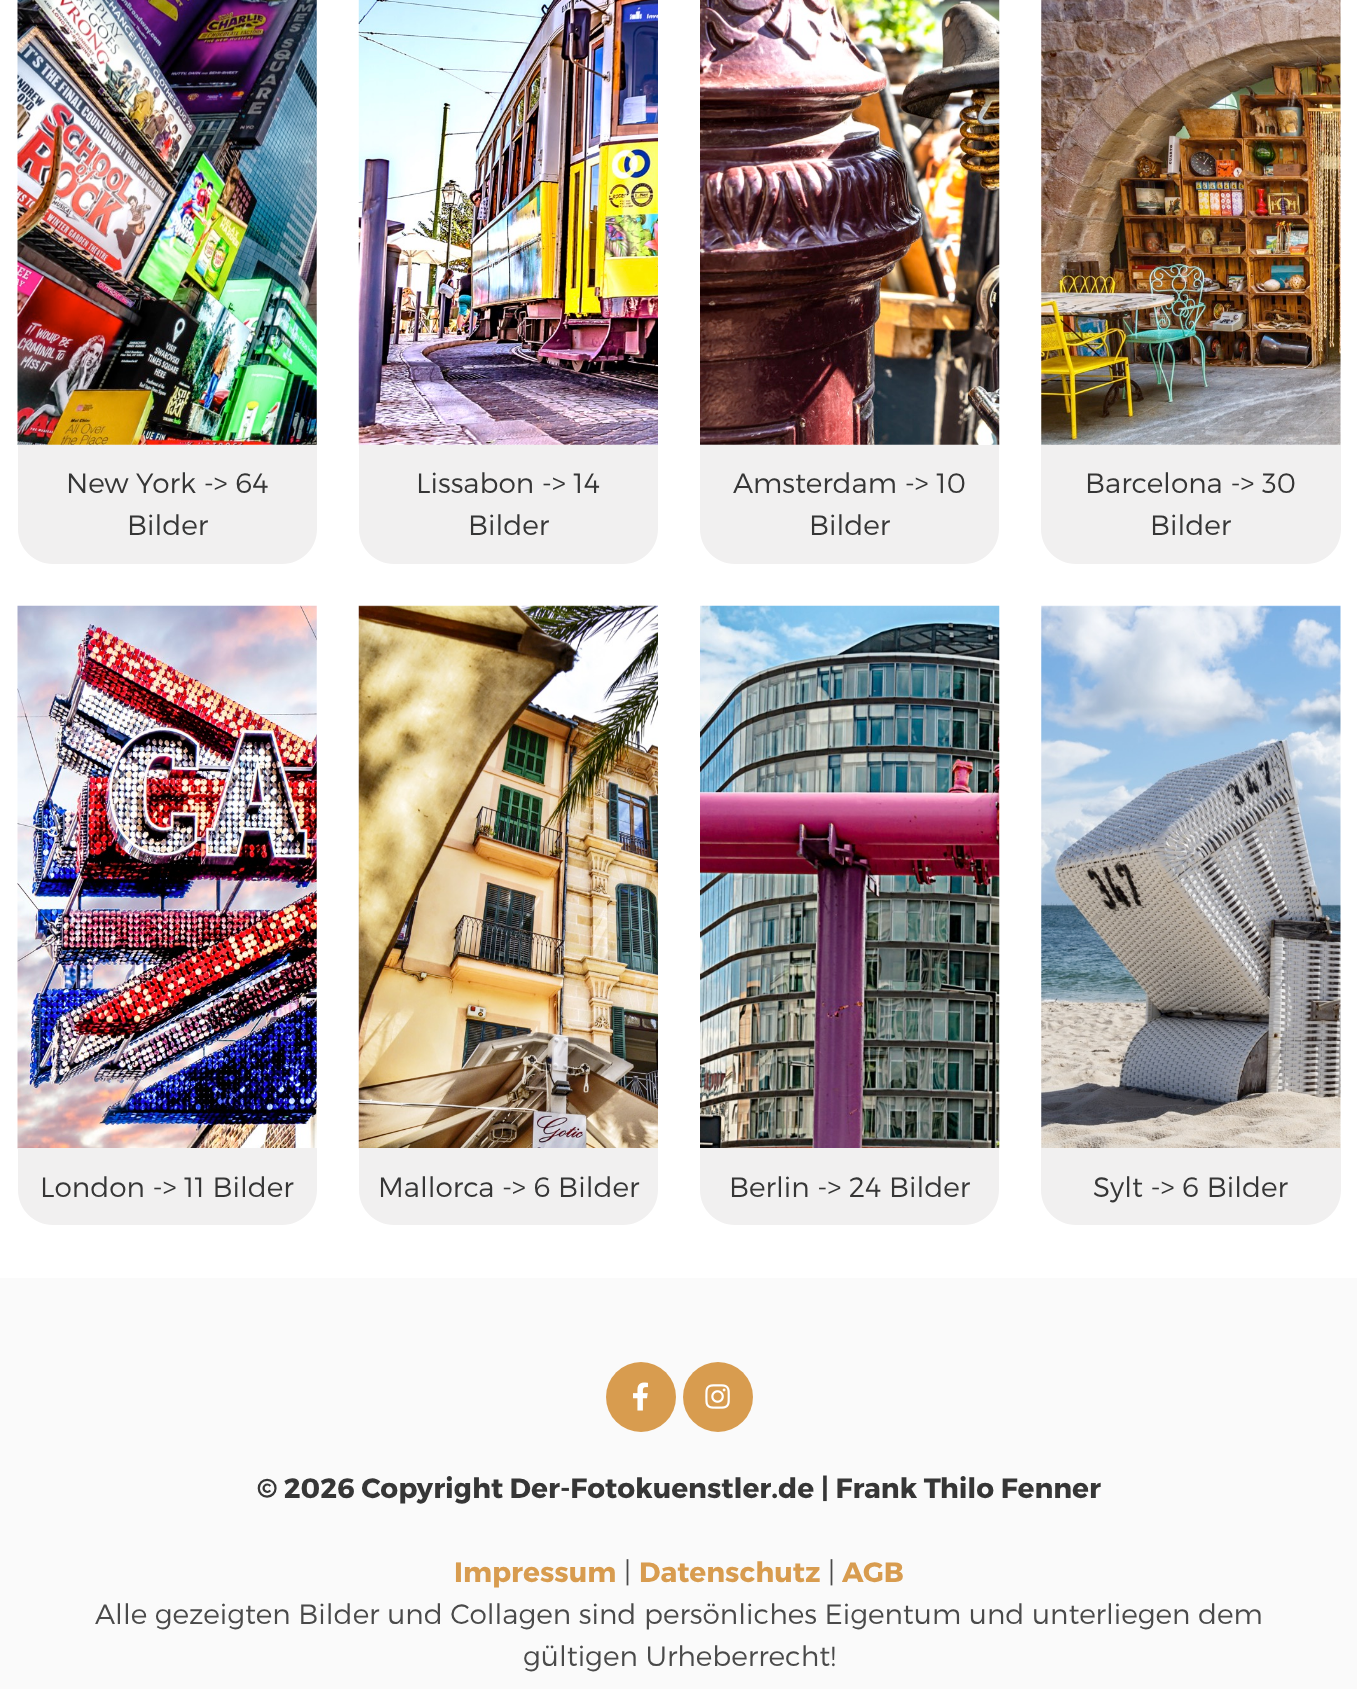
<?xml version="1.0" encoding="UTF-8"?>
<svg xmlns="http://www.w3.org/2000/svg" xmlns:xlink="http://www.w3.org/1999/xlink" width="1357" height="1689">
  <rect width="100%" height="100%" fill="#ffffff" />
  <image x="17" y="0" width="300" height="445" xlink:href="image1.png" />
  <path d="M 18 445 h 299 v 84 c 0 19.5 -15.5 35 -35 35 h -229 c -19.5 0 -35 -15.5 -35 -35 z" fill="#f1f0f0" />
  <image x="358" y="0" width="300" height="445" xlink:href="image2.png" />
  <path d="M 359 445 h 299 v 84 c 0 19.5 -15.5 35 -35 35 h -229 c -19.5 0 -35 -15.5 -35 -35 z" fill="#f1f0f0" />
  <image x="700" y="0" width="300" height="445" xlink:href="image3.png" />
  <path d="M 700 445 h 299 v 84 c 0 19.5 -15.5 35 -35 35 h -229 c -19.5 0 -35 -15.5 -35 -35 z" fill="#f1f0f0" />
  <image x="1041" y="0" width="300" height="445" xlink:href="image4.png" />
  <path d="M 1041 445 h 300 v 84 c 0 19.5 -15.5 35 -35 35 h -230 c -19.5 0 -35 -15.5 -35 -35 z" fill="#f1f0f0" />
  <image x="17" y="605" width="300" height="544" xlink:href="image5.png" />
  <path d="M 18 1148 h 299 v 42 c 0 19.5 -15.5 35 -35 35 h -229 c -19.5 0 -35 -15.5 -35 -35 z" fill="#f1f0f0" />
  <image x="358" y="605" width="300" height="544" xlink:href="image6.png" />
  <path d="M 359 1148 h 299 v 42 c 0 19.5 -15.5 35 -35 35 h -229 c -19.5 0 -35 -15.5 -35 -35 z" fill="#f1f0f0" />
  <image x="700" y="605" width="300" height="544" xlink:href="image7.png" />
  <path d="M 700 1148 h 299 v 42 c 0 19.5 -15.5 35 -35 35 h -229 c -19.5 0 -35 -15.5 -35 -35 z" fill="#f1f0f0" />
  <image x="1041" y="605" width="300" height="543" xlink:href="image8.png" />
  <path d="M 1041 1148 h 300 v 42 c 0 19.5 -15.5 35 -35 35 h -230 c -19.5 0 -35 -15.5 -35 -35 z" fill="#f1f0f0" />
  <rect y="1278" width="1357" height="411" fill="#fafafa" />
  <circle cx="641" cy="1397" r="35" fill="#d89c4f" />
  <image x="633" y="1382" width="15" height="29" xlink:href="image9.png" />
  <circle cx="718" cy="1397" r="35" fill="#d89c4f" />
  <image x="705" y="1384" width="25" height="25" xlink:href="image10.png" />
  <text x="66" y="493" style="font-family: Montserrat; font-size: 28px; font-weight: 300; fill: #363636">New York -&gt; 64</text>
  <text x="127" y="535" style="font-family: Montserrat; font-size: 28px; font-weight: 300; fill: #363636">Bilder</text>
  <text x="416" y="493" style="font-family: Montserrat; font-size: 28px; font-weight: 300; fill: #363636">Lissabon -&gt; 14</text>
  <text x="468" y="535" style="font-family: Montserrat; font-size: 28px; font-weight: 300; fill: #363636">Bilder</text>
  <text x="733" y="493" style="font-family: Montserrat; font-size: 28px; font-weight: 300; fill: #363636">Amsterdam -&gt; 10</text>
  <text x="809" y="535" style="font-family: Montserrat; font-size: 28px; font-weight: 300; fill: #363636">Bilder</text>
  <text x="1085" y="493" style="font-family: Montserrat; font-size: 28px; font-weight: 300; fill: #363636">Barcelona -&gt; 30</text>
  <text x="1150" y="535" style="font-family: Montserrat; font-size: 28px; font-weight: 300; fill: #363636">Bilder</text>
  <text x="40" y="1197" style="font-family: Montserrat; font-size: 28px; font-weight: 300; fill: #363636">London -&gt; 11 Bilder</text>
  <text x="378" y="1197" style="font-family: Montserrat; font-size: 28px; font-weight: 300; fill: #363636">Mallorca -&gt; 6 Bilder</text>
  <text x="729" y="1197" style="font-family: Montserrat; font-size: 28px; font-weight: 300; fill: #363636">Berlin -&gt; 24 Bilder</text>
  <text x="1093" y="1197" style="font-family: Montserrat; font-size: 28px; font-weight: 300; fill: #363636">Sylt -&gt; 6 Bilder</text>
  <text x="257" y="1498" style="font-family: Montserrat; font-size: 28px; font-weight: bold; fill: #363636">© 2026 Copyright Der-Fotokuenstler.de | Frank Thilo Fenner</text>
  <text x="454" y="1582" style="font-family: Montserrat; font-size: 28px; font-weight: bold; fill: #d89c4f">Impressum</text>
  <text x="624" y="1582" style="font-family: Montserrat; font-size: 28px; font-weight: 300; fill: #4a4a4a">|</text>
  <text x="639" y="1582" style="font-family: Montserrat; font-size: 28px; font-weight: bold; fill: #d89c4f">Datenschutz</text>
  <text x="828" y="1582" style="font-family: Montserrat; font-size: 28px; font-weight: 300; fill: #4a4a4a">|</text>
  <text x="842" y="1582" style="font-family: Montserrat; font-size: 28px; font-weight: bold; fill: #d89c4f">AGB</text>
  <text x="95" y="1624" style="font-family: Montserrat; font-size: 28px; font-weight: 300; fill: #4a4a4a">Alle gezeigten Bilder und Collagen sind persönliches Eigentum und unterliegen dem</text>
  <text x="523" y="1666" style="font-family: Montserrat; font-size: 28px; font-weight: 300; fill: #4a4a4a">gültigen Urheberrecht!</text>
</svg>
